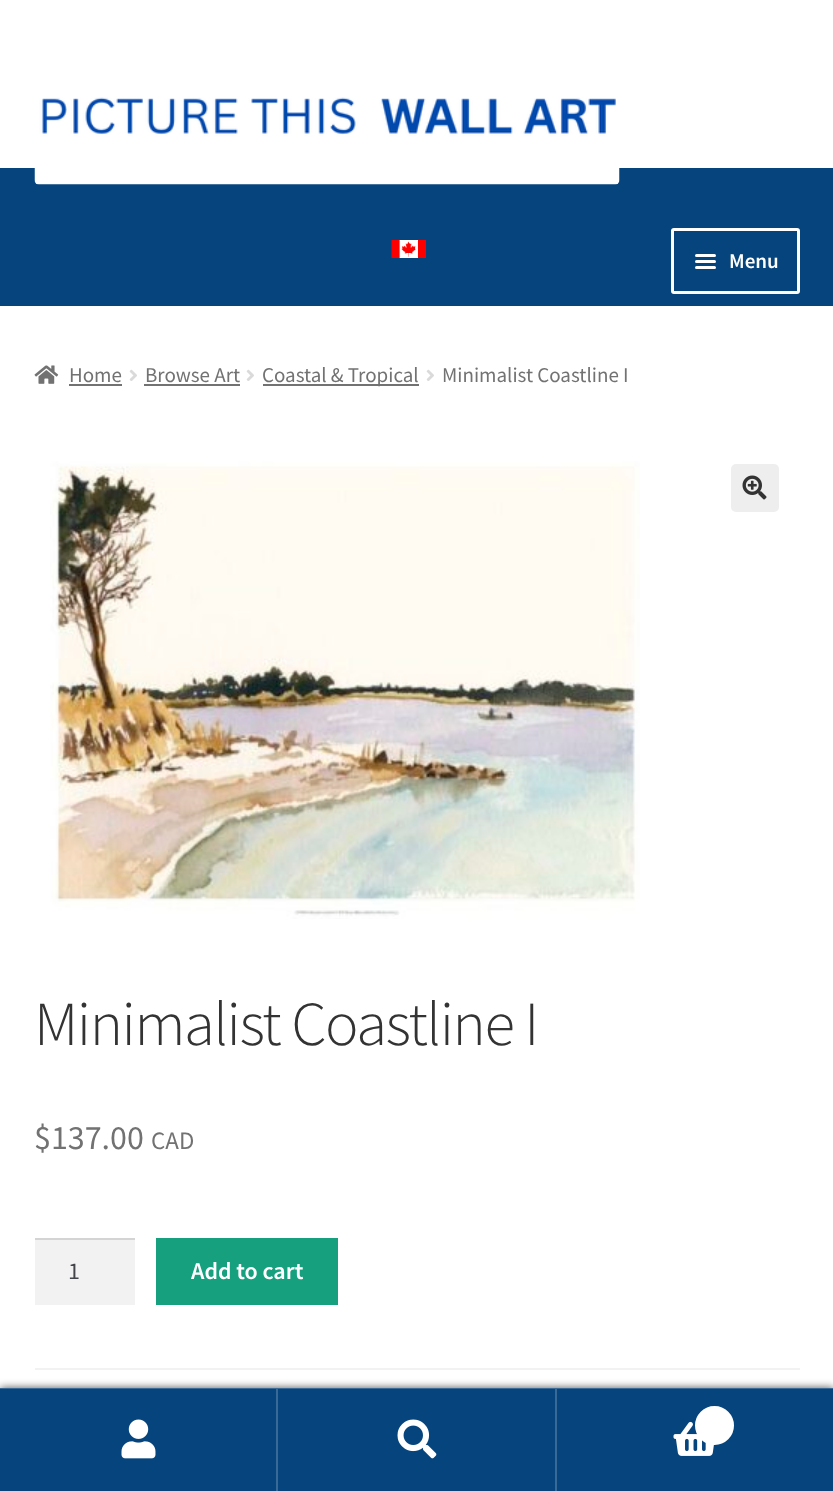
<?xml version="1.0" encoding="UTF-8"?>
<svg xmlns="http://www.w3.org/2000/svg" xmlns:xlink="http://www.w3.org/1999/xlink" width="833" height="1491">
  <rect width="100%" height="100%" fill="#ffffff" />
  <rect y="168" width="833" height="138" fill="#06447d" />
  <image x="34" y="97" width="586" height="88" xlink:href="image1.png" />
  <image x="391" y="240" width="35" height="18" xlink:href="image2.png" />
  <rect x="672.5" y="229.5" width="126" height="63" rx="1.5" fill="none" stroke="#ffffff" stroke-width="3" />
  <rect x="695" y="254" width="21" height="3" rx="1.5" fill="#ffffff" />
  <rect x="695" y="260" width="21" height="3" rx="1.5" fill="#ffffff" />
  <rect x="695" y="266" width="21" height="3" rx="1.5" fill="#ffffff" />
  <image x="34" y="365" width="25" height="19" xlink:href="image3.png" />
  <rect x="69" y="384" width="53" height="2" fill="#727272" />
  <image x="129" y="369" width="8" height="12" xlink:href="image4.png" />
  <rect x="144" y="384" width="96" height="2" fill="#727272" />
  <image x="246" y="369" width="8" height="12" xlink:href="image4.png" />
  <rect x="263" y="384" width="156" height="2" fill="#727272" />
  <image x="426" y="369" width="8" height="12" xlink:href="image4.png" />
  <image x="50" y="461" width="590" height="458" xlink:href="image5.png" />
  <rect x="731" y="464" width="48" height="48" rx="5" fill="#eeeeee" />
  <image x="742" y="475" width="25" height="25" xlink:href="image6.png" />
  <rect x="35" y="1240" width="100" height="65" fill="#f2f2f2" />
  <rect x="35" y="1238" width="100" height="2" fill="#d4d4d4" />
  <rect x="156" y="1238" width="182" height="67" fill="#16a07e" />
  <rect x="35" y="1368" width="765" height="2" fill="#f2f2f2" />
  <rect y="1388" width="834" height="103" fill="#000000" fill-opacity="0.7" filter="blur(4.5px)" />
  <rect y="1388" width="833" height="1" fill="#386997" />
  <rect y="1389" width="276" height="102" fill="#06447d" />
  <rect x="276" y="1389" width="2" height="102" fill="#386997" />
  <image x="121" y="1419" width="35" height="40" xlink:href="image7.png" />
  <rect x="278" y="1389" width="277" height="102" fill="#06447d" />
  <rect x="555" y="1389" width="2" height="102" fill="#386997" />
  <image x="397" y="1419" width="40" height="40" xlink:href="image8.png" />
  <rect x="557" y="1389" width="276" height="102" fill="#06447d" />
  <image x="673" y="1421" width="41" height="35" xlink:href="image9.png" />
  <circle cx="714.5" cy="1425.5" r="18.5" fill="#ffffff" stroke="#ffffff" stroke-width="2" />
  <text x="729" y="268" style="font-family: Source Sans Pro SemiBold; font-size: 21px; font-weight: 600; fill: #ffffff">Menu</text>
  <text x="69" y="382" style="font-family: Source Sans Pro; font-size: 21px; fill: #727272">Home</text>
  <text x="145" y="382" style="font-family: Source Sans Pro; font-size: 21px; fill: #727272">Browse Art</text>
  <text x="262" y="382" style="font-family: Source Sans Pro; font-size: 21px; fill: #727272">Coastal &amp; Tropical</text>
  <text x="442" y="382" style="font-family: Source Sans Pro; font-size: 21px; fill: #727272">Minimalist Coastline I</text>
  <text x="34" y="1045" style="font-family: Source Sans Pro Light; font-size: 62.75px; font-weight: 300; letter-spacing: -1.5px; fill: #333333">Minimalist Coastline I</text>
  <text x="34" y="1149" style="font-family: Source Sans Pro; font-size: 34px; fill: #727272">$137.00</text>
  <text x="151" y="1149" style="font-family: Source Sans Pro; font-size: 25px; fill: #727272">CAD</text>
  <text x="68" y="1279" style="font-family: Source Sans Pro; font-size: 24px; fill: #43454b">1</text>
  <text x="191" y="1279" style="font-family: Source Sans Pro SemiBold; font-size: 24px; font-weight: 600; fill: #ffffff">Add to cart</text>
</svg>
